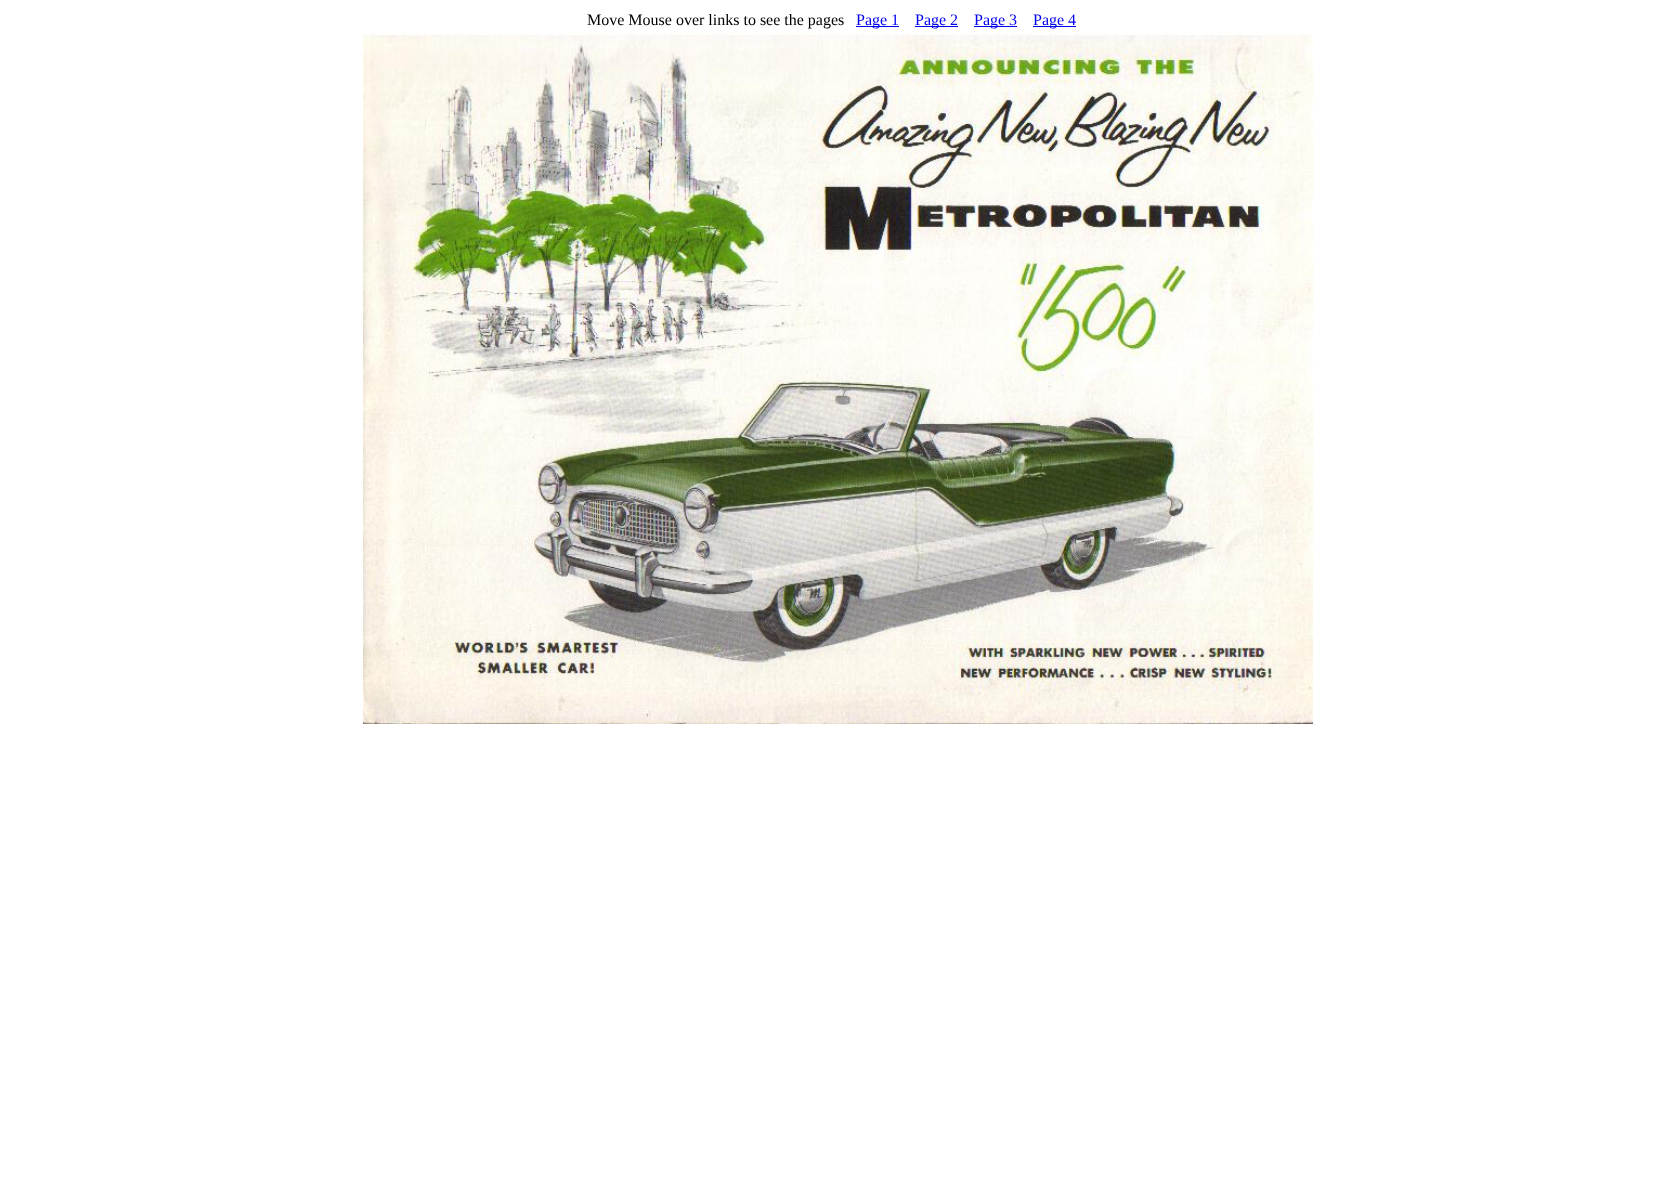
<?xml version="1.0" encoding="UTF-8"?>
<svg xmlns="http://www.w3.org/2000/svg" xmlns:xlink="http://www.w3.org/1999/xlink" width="1675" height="1177">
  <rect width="100%" height="100%" fill="#ffffff" />
  <rect x="856" y="26" width="43" height="1" fill="#0000ee" />
  <rect x="915" y="26" width="43" height="1" fill="#0000ee" />
  <rect x="974" y="26" width="43" height="1" fill="#0000ee" />
  <rect x="1033" y="26" width="43" height="1" fill="#0000ee" />
  <image x="363" y="33" width="950" height="691" xlink:href="image1.png" />
  <text x="587" y="25" style="font-family: Liberation Serif; font-size: 16px; fill: #000000">Move Mouse over links to see the pages</text>
  <text x="856" y="25" style="font-family: Liberation Serif; font-size: 16px; fill: #0000ee">Page 1</text>
  <text x="915" y="25" style="font-family: Liberation Serif; font-size: 16px; fill: #0000ee">Page 2</text>
  <text x="974" y="25" style="font-family: Liberation Serif; font-size: 16px; fill: #0000ee">Page 3</text>
  <text x="1033" y="25" style="font-family: Liberation Serif; font-size: 16px; fill: #0000ee">Page 4</text>
</svg>
